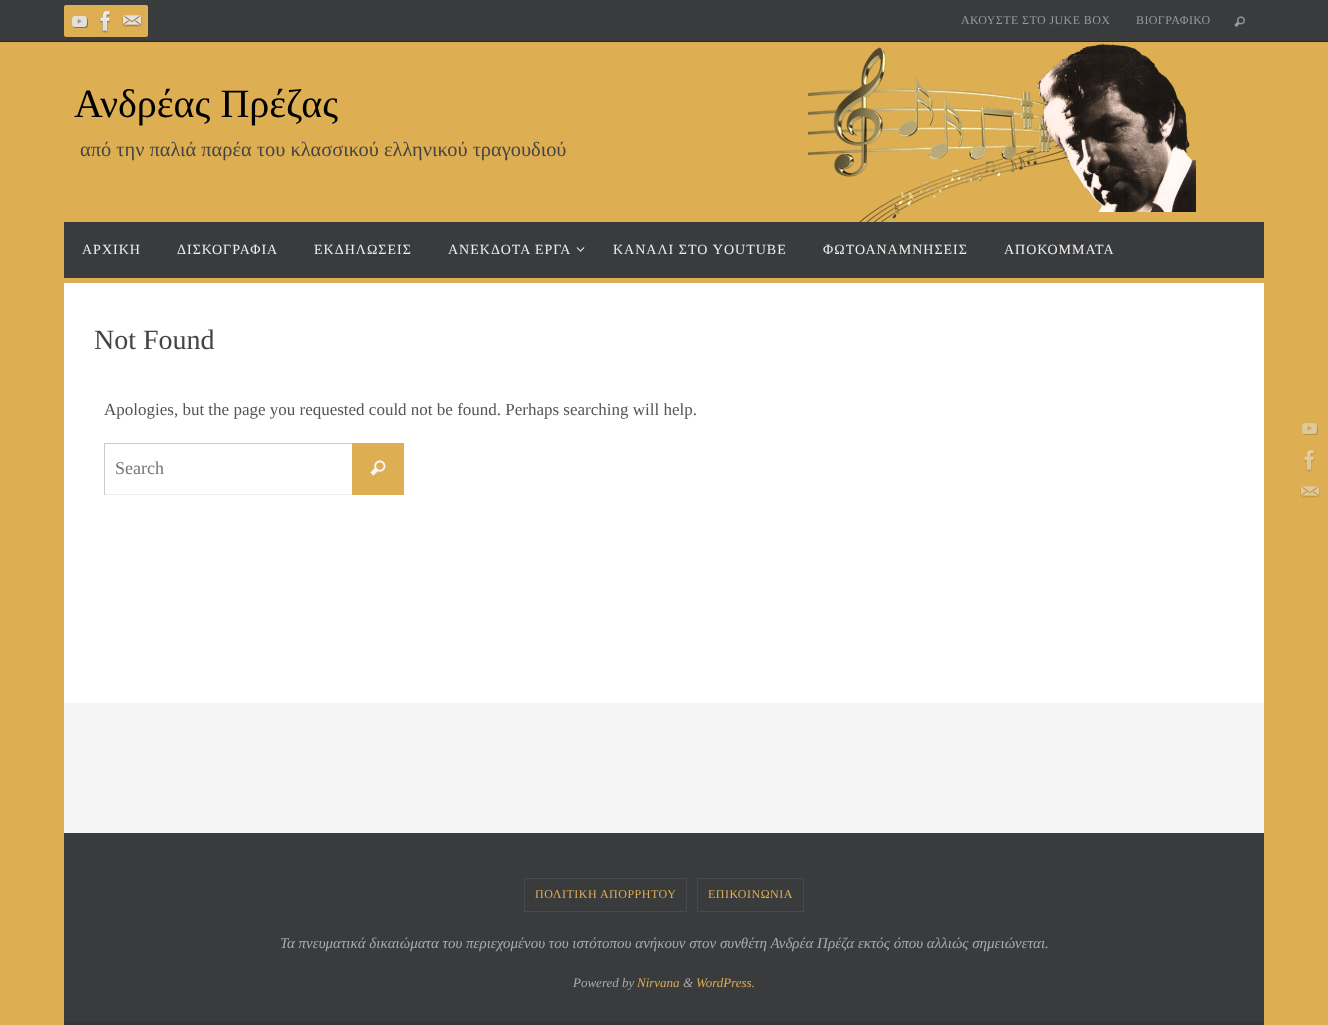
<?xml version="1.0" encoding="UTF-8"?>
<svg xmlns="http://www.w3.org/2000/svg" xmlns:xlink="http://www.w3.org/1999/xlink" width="1328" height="1025">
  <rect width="100%" height="100%" fill="#ddae52" />
  <rect width="1328" height="41" fill="#3a3b3d" />
  <rect y="41" width="1328" height="1" fill="#262729" />
  <rect x="64" y="5" width="32" height="32" rx="2" fill="#ddae52" />
  <image x="72" y="16" width="16" height="12" xlink:href="image1.png" />
  <rect x="90" y="5" width="32" height="32" rx="2" fill="#ddae52" />
  <image x="99" y="11" width="12" height="22" xlink:href="image2.png" />
  <rect x="116" y="5" width="32" height="32" rx="2" fill="#ddae52" />
  <image x="122" y="15" width="20" height="12" xlink:href="image3.png" />
  <image x="1234" y="16" width="11" height="11" xlink:href="image4.png" />
  <image x="808" y="44" width="388" height="178" xlink:href="image5.png" />
  <rect x="64" y="222" width="1200" height="56" fill="#3a3b3d" />
  <image x="576" y="247" width="9" height="5" xlink:href="image6.png" />
  <rect x="64" y="283" width="1200" height="420" fill="#ffffff" />
  <rect x="352" y="443" width="52" height="52" fill="#ddae52" />
  <rect x="104" y="443" width="248" height="1" fill="#cccccc" />
  <rect x="104" y="494" width="248" height="1" fill="#eeeeee" />
  <rect x="104" y="443" width="1" height="52" fill="#cccccc" />
  <image x="370" y="460" width="16" height="16" xlink:href="image7.png" />
  <rect x="64" y="703" width="1200" height="130" fill="#f5f5f5" />
  <rect x="64" y="833" width="1200" height="189" fill="#3a3b3d" />
  <rect x="524.5" y="878.5" width="162" height="33" fill="none" stroke="#494a4c" />
  <rect x="697.5" y="878.5" width="106" height="33" fill="none" stroke="#494a4c" />
  <rect x="64" y="1022" width="1200" height="3" fill="#353638" />
  <image x="1302" y="423" width="16" height="12" xlink:href="image8.png" />
  <image x="1303" y="450" width="12" height="22" xlink:href="image9.png" />
  <image x="1300" y="486" width="20" height="12" xlink:href="image10.png" />
  <text x="961" y="24" style="font-family: Liberation Serif; font-size: 12px; letter-spacing: 0.4px; fill: #999999">ΑΚΟΥΣΤΕ ΣΤΟ JUKE BOX</text>
  <text x="1136" y="24" style="font-family: Liberation Serif; font-size: 12px; letter-spacing: 0.4px; fill: #999999">ΒΙΟΓΡΑΦΙΚΟ</text>
  <text x="74" y="117" style="font-family: Liberation Serif; font-size: 40px; fill: #000000">Ανδρέας Πρέζας</text>
  <text x="80" y="156" style="font-family: Liberation Serif; font-size: 20.4px; fill: #444444">από την παλιά παρέα του κλασσικού ελληνικού τραγουδιού</text>
  <text x="82" y="254" style="font-family: Liberation Serif; font-size: 14px; letter-spacing: 1px; fill: #eeeeee">ΑΡΧΙΚΗ</text>
  <text x="177" y="254" style="font-family: Liberation Serif; font-size: 14px; letter-spacing: 1px; fill: #eeeeee">ΔΙΣΚΟΓΡΑΦΙΑ</text>
  <text x="314" y="254" style="font-family: Liberation Serif; font-size: 14px; letter-spacing: 1px; fill: #eeeeee">ΕΚΔΗΛΩΣΕΙΣ</text>
  <text x="448" y="254" style="font-family: Liberation Serif; font-size: 14px; letter-spacing: 1px; fill: #eeeeee">ΑΝΕΚΔΟΤΑ ΕΡΓΑ</text>
  <text x="613" y="254" style="font-family: Liberation Serif; font-size: 14px; letter-spacing: 1px; fill: #eeeeee">ΚΑΝΑΛΙ ΣΤΟ YOUTUBE</text>
  <text x="823" y="254" style="font-family: Liberation Serif; font-size: 14px; letter-spacing: 1px; fill: #eeeeee">ΦΩΤΟΑΝΑΜΝΗΣΕΙΣ</text>
  <text x="1004" y="254" style="font-family: Liberation Serif; font-size: 14px; letter-spacing: 1px; fill: #eeeeee">ΑΠΟΚΟΜΜΑΤΑ</text>
  <text x="94" y="349" style="font-family: Liberation Serif; font-size: 28px; fill: #444444">Not Found</text>
  <text x="104" y="415" style="font-family: Liberation Serif; font-size: 17px; fill: #555555">Apologies, but the page you requested could not be found. Perhaps searching will help.</text>
  <text x="115" y="474" style="font-family: Liberation Serif; font-size: 18px; fill: #757575">Search</text>
  <text x="535" y="898" style="font-family: Liberation Serif; font-size: 12px; letter-spacing: 0.5px; fill: #ddae52">ΠΟΛΙΤΙΚΗ ΑΠΟΡΡΗΤΟΥ</text>
  <text x="708" y="898" style="font-family: Liberation Serif; font-size: 12px; letter-spacing: 0.5px; fill: #ddae52">ΕΠΙΚΟΙΝΩΝΙΑ</text>
  <text x="280" y="948" style="font-family: Liberation Serif; font-size: 15px; font-style: italic; fill: #aaaaaa">Τα πνευματικά δικαιώματα του περιεχομένου του ιστότοπου ανήκουν στον συνθέτη Ανδρέα Πρέζα εκτός όπου αλλιώς σημειώνεται.</text>
  <text x="573" y="987" style="font-family: Liberation Serif; font-size: 13px; font-style: italic; fill: #aaaaaa">Powered by</text>
  <text x="637" y="987" style="font-family: Liberation Serif; font-size: 13px; font-style: italic; fill: #ddae52">Nirvana</text>
  <text x="683" y="987" style="font-family: Liberation Serif; font-size: 13px; font-style: italic; fill: #aaaaaa">&amp;</text>
  <text x="696" y="987" style="font-family: Liberation Serif; font-size: 13px; font-style: italic; fill: #ddae52">WordPress.</text>
</svg>
